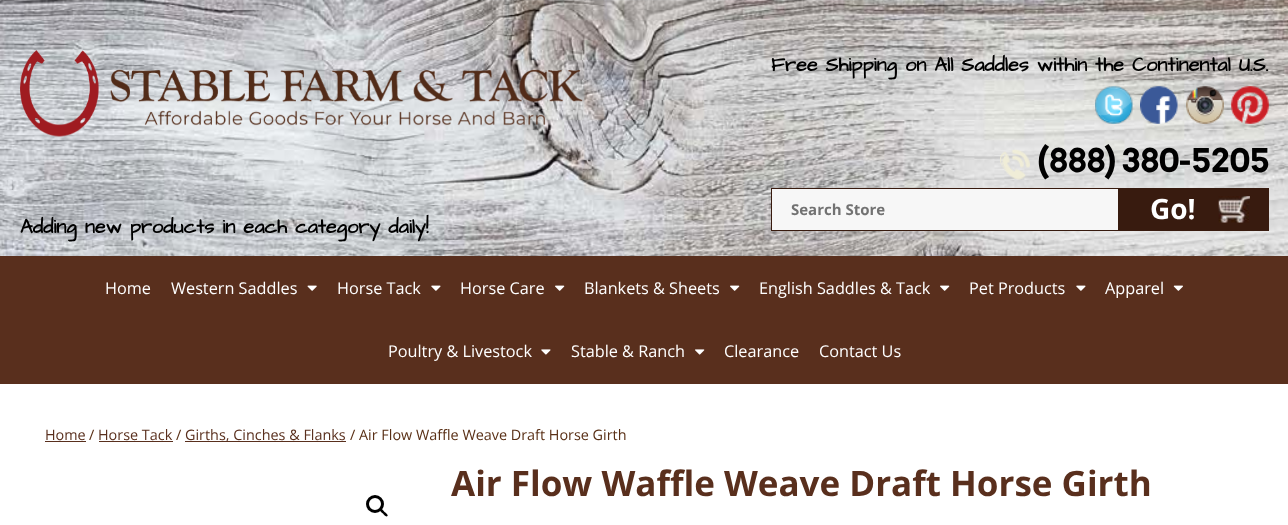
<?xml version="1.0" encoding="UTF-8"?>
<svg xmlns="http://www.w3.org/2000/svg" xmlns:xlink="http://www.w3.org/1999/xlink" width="1288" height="525">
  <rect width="100%" height="100%" fill="#ffffff" />
  <image x="0" y="0" width="1288" height="256" xlink:href="image1.png" />
  <image x="1095" y="86" width="38" height="38" xlink:href="image2.png" />
  <image x="1140" y="86" width="38" height="38" xlink:href="image3.png" />
  <image x="1186" y="86" width="38" height="38" xlink:href="image4.png" />
  <image x="1231" y="86" width="38" height="38" xlink:href="image5.png" />
  <image x="1000" y="149" width="30" height="31" xlink:href="image6.png" />
  <rect x="771.5" y="188.5" width="347" height="42" fill="#f7f7f7" stroke="#381b0f" />
  <rect x="1119" y="188" width="150" height="43" fill="#381b0f" />
  <image x="1218" y="196" width="32" height="27" xlink:href="image7.png" />
  <image x="20" y="50" width="563" height="87" xlink:href="image8.png" />
  <rect y="256" width="1288" height="128" fill="#592f1d" />
  <image x="307" y="285" width="10" height="6" xlink:href="image9.png" />
  <image x="431" y="285" width="10" height="6" xlink:href="image10.png" />
  <image x="555" y="285" width="10" height="6" xlink:href="image11.png" />
  <image x="730" y="285" width="10" height="6" xlink:href="image11.png" />
  <image x="940" y="285" width="10" height="6" xlink:href="image11.png" />
  <image x="1076" y="285" width="10" height="6" xlink:href="image10.png" />
  <image x="1173" y="285" width="10" height="6" xlink:href="image12.png" />
  <image x="541" y="349" width="10" height="6" xlink:href="image13.png" />
  <image x="695" y="349" width="10" height="6" xlink:href="image14.png" />
  <rect x="45" y="441" width="41" height="1" fill="#592f1d" />
  <rect x="99" y="441" width="74" height="1" fill="#592f1d" />
  <rect x="185" y="441" width="161" height="1" fill="#592f1d" />
  <circle cx="375" cy="504" r="7.5" fill="none" stroke="#000000" stroke-width="3" />
  <path d="M 380 509 c 1.5 -1.5 4 2 4.5 3 c 1 0.5 4 3 3 4 c -1.5 1.5 -4 -1.5 -4.5 -2.5 c -1 -0.5 -4 -3 -3 -4.5 z" fill="#000000" />
  <text x="771" y="71" style="font-family: Architects Daughter; font-size: 20px; font-weight: bold; fill: #000000">Free Shipping on All Saddles within the Continental U.S.</text>
  <text x="1037" y="172" style="font-family: Arvo; font-size: 32.5px; font-weight: bold; fill: #000000">(888) 380-5205</text>
  <text x="791" y="215" style="font-family: Open Sans; font-size: 15px; font-weight: bold; fill: #727272">Search Store</text>
  <text x="1150" y="219" style="font-family: Open Sans; font-size: 28px; font-weight: bold; fill: #ffffff">Go!</text>
  <text x="20" y="233" style="font-family: Architects Daughter; font-size: 20px; font-weight: bold; fill: #000000">Adding new products in each category daily!</text>
  <text x="105" y="294" style="font-family: Open Sans; font-size: 16.25px; fill: #ffffff">Home</text>
  <text x="171" y="294" style="font-family: Open Sans; font-size: 16.25px; fill: #ffffff">Western Saddles</text>
  <text x="337" y="294" style="font-family: Open Sans; font-size: 16.25px; fill: #ffffff">Horse Tack</text>
  <text x="460" y="294" style="font-family: Open Sans; font-size: 16.25px; fill: #ffffff">Horse Care</text>
  <text x="584" y="294" style="font-family: Open Sans; font-size: 16.25px; fill: #ffffff">Blankets &amp; Sheets</text>
  <text x="759" y="294" style="font-family: Open Sans; font-size: 16.25px; fill: #ffffff">English Saddles &amp; Tack</text>
  <text x="969" y="294" style="font-family: Open Sans; font-size: 16.25px; fill: #ffffff">Pet Products</text>
  <text x="1105" y="294" style="font-family: Open Sans; font-size: 16.25px; fill: #ffffff">Apparel</text>
  <text x="388" y="357" style="font-family: Open Sans; font-size: 16.25px; fill: #ffffff">Poultry &amp; Livestock</text>
  <text x="571" y="357" style="font-family: Open Sans; font-size: 16.25px; fill: #ffffff">Stable &amp; Ranch</text>
  <text x="724" y="357" style="font-family: Open Sans; font-size: 16.25px; fill: #ffffff">Clearance</text>
  <text x="819" y="357" style="font-family: Open Sans; font-size: 16.25px; fill: #ffffff">Contact Us</text>
  <text x="45" y="440" style="font-family: Open Sans; font-size: 14.4px; fill: #592f1d">Home</text>
  <text x="89" y="440" style="font-family: Open Sans; font-size: 14.4px; fill: #592f15">/</text>
  <text x="98" y="440" style="font-family: Open Sans; font-size: 14.4px; fill: #592f1d">Horse Tack</text>
  <text x="176" y="440" style="font-family: Open Sans; font-size: 14.4px; fill: #592f15">/</text>
  <text x="185" y="440" style="font-family: Open Sans; font-size: 14.4px; fill: #592f1d">Girths, Cinches &amp; Flanks</text>
  <text x="350" y="440" style="font-family: Open Sans; font-size: 14.4px; fill: #592f15">/ Air Flow Waffle Weave Draft Horse Girth</text>
  <text x="451" y="496" style="font-family: Open Sans; font-size: 35px; font-weight: bold; fill: #592f1d">Air Flow Waffle Weave Draft Horse Girth</text>
</svg>
